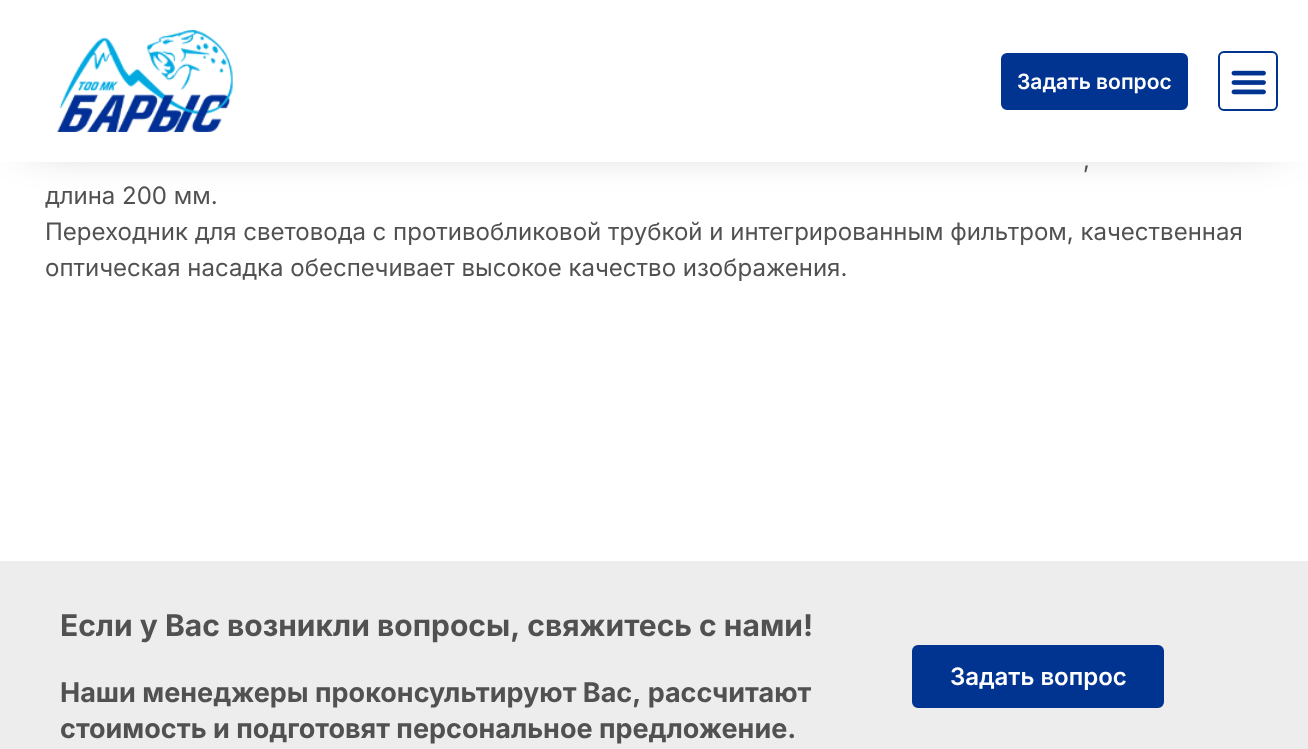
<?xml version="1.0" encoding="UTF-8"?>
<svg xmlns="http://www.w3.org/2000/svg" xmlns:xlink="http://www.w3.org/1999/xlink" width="1308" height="749">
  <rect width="100%" height="100%" fill="#ffffff" />
  <rect x="30" y="30" width="1248" height="102" fill="#000000" fill-opacity="0.5" filter="blur(26px)" />
  <rect width="1308" height="162" fill="#ffffff" />
  <image x="57" y="30" width="176" height="102" xlink:href="image1.png" />
  <rect x="1002" y="54" width="185" height="55" rx="5" fill="#013391" stroke="#013391" stroke-width="2" />
  <rect x="1219" y="52" width="58" height="58" rx="5" fill="none" stroke="#013391" stroke-width="2" />
  <image x="1231" y="70" width="35" height="25" xlink:href="image2.png" />
  <rect y="561" width="1308" height="188" fill="#ededed" />
  <rect x="913" y="646" width="250" height="61" rx="5" fill="#013391" stroke="#013391" stroke-width="2" />
  <text x="1017" y="89" style="font-family: Inter; font-size: 21px; font-weight: 600; fill: #ffffff">Задать вопрос</text>
  <text x="1083" y="168" style="font-family: Inter; font-size: 24px; fill: #515151">,</text>
  <text x="45" y="204" style="font-family: Inter; font-size: 24px; fill: #515151">длина 200 мм.</text>
  <text x="45" y="240" style="font-family: Inter; font-size: 24px; fill: #515151">Переходник для световода с противобликовой трубкой и интегрированным фильтром, качественная</text>
  <text x="45" y="276" style="font-family: Inter; font-size: 24px; fill: #515151">оптическая насадка обеспечивает высокое качество изображения.</text>
  <text x="60" y="636" style="font-family: Inter; font-size: 30px; font-weight: bold; fill: #515151">Если у Вас возникли вопросы, свяжитесь с нами!</text>
  <text x="60" y="702" style="font-family: Inter; font-size: 27px; font-weight: bold; fill: #515151">Наши менеджеры проконсультируют Вас, рассчитают</text>
  <text x="60" y="738" style="font-family: Inter; font-size: 27px; font-weight: bold; fill: #515151">стоимость и подготовят персональное предложение.</text>
  <text x="950" y="685" style="font-family: Inter; font-size: 24px; font-weight: 600; fill: #ffffff">Задать вопрос</text>
</svg>
